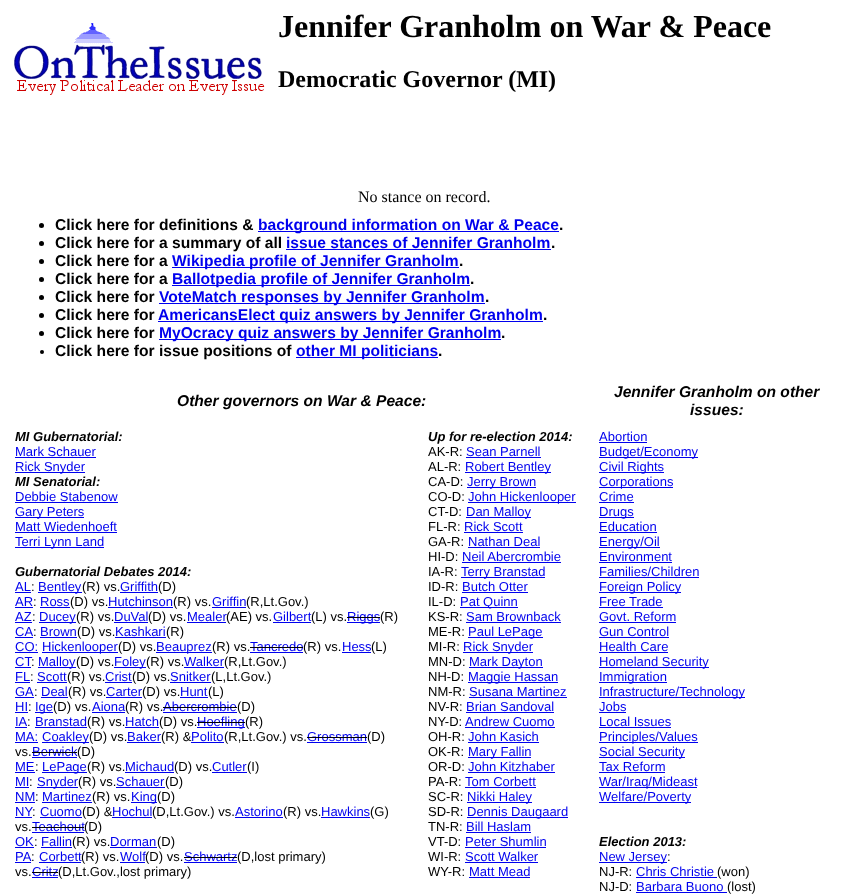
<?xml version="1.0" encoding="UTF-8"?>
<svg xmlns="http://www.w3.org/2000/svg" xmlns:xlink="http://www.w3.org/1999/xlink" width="849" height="894">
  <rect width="100%" height="100%" fill="#ffffff" />
  <image x="14" y="23" width="251" height="72" xlink:href="image1.png" />
  <circle cx="41.5" cy="225.5" r="2.5" fill="#000000" />
  <rect x="258" y="231" width="301" height="1" fill="#0000ee" />
  <circle cx="41.5" cy="243.5" r="2.5" fill="#000000" />
  <rect x="286" y="249" width="265" height="1" fill="#0000ee" />
  <circle cx="41.5" cy="261.5" r="2.5" fill="#000000" />
  <rect x="172" y="267" width="287" height="1" fill="#0000ee" />
  <circle cx="41.5" cy="279.5" r="2.5" fill="#000000" />
  <rect x="172" y="285" width="298" height="1" fill="#0000ee" />
  <circle cx="41.5" cy="297.5" r="2.5" fill="#000000" />
  <rect x="159" y="303" width="326" height="1" fill="#0000ee" />
  <circle cx="41.5" cy="315.5" r="2.5" fill="#000000" />
  <rect x="158" y="321" width="385" height="1" fill="#0000ee" />
  <circle cx="41.5" cy="333.5" r="2.5" fill="#000000" />
  <rect x="159" y="339" width="342" height="1" fill="#0000ee" />
  <circle cx="42" cy="352" r="2" fill="#000000" />
  <rect x="296" y="357" width="142" height="1" fill="#0000ee" />
  <rect x="15" y="457" width="81" height="1" fill="#0000ee" />
  <rect x="15" y="472" width="70" height="1" fill="#0000ee" />
  <rect x="15" y="502" width="103" height="1" fill="#0000ee" />
  <rect x="15" y="517" width="69" height="1" fill="#0000ee" />
  <rect x="15" y="532" width="102" height="1" fill="#0000ee" />
  <rect x="15" y="547" width="89" height="1" fill="#0000ee" />
  <rect x="15" y="592" width="16" height="1" fill="#0000ee" />
  <rect x="38" y="592" width="44" height="1" fill="#0000ee" />
  <rect x="120" y="592" width="38" height="1" fill="#0000ee" />
  <rect x="15" y="607" width="18" height="1" fill="#0000ee" />
  <rect x="40" y="607" width="30" height="1" fill="#0000ee" />
  <rect x="108" y="607" width="65" height="1" fill="#0000ee" />
  <rect x="212" y="607" width="34" height="1" fill="#0000ee" />
  <rect x="15" y="622" width="17" height="1" fill="#0000ee" />
  <rect x="39" y="622" width="37" height="1" fill="#0000ee" />
  <rect x="114" y="622" width="34" height="1" fill="#0000ee" />
  <rect x="187" y="622" width="39" height="1" fill="#0000ee" />
  <rect x="273" y="622" width="38" height="1" fill="#0000ee" />
  <rect x="347" y="622" width="33" height="1" fill="#0000ee" />
  <rect x="15" y="637" width="18" height="1" fill="#0000ee" />
  <rect x="40" y="637" width="37" height="1" fill="#0000ee" />
  <rect x="115" y="637" width="51" height="1" fill="#0000ee" />
  <rect x="15" y="652" width="23" height="1" fill="#0000ee" />
  <rect x="42" y="652" width="76" height="1" fill="#0000ee" />
  <rect x="156" y="652" width="56" height="1" fill="#0000ee" />
  <rect x="250" y="652" width="53" height="1" fill="#0000ee" />
  <rect x="342" y="652" width="29" height="1" fill="#0000ee" />
  <rect x="38" y="667" width="38" height="1" fill="#0000ee" />
  <rect x="114" y="667" width="32" height="1" fill="#0000ee" />
  <rect x="184" y="667" width="40" height="1" fill="#0000ee" />
  <rect x="15" y="667" width="16" height="1" fill="#0000ee" />
  <rect x="15" y="682" width="15" height="1" fill="#0000ee" />
  <rect x="37" y="682" width="30" height="1" fill="#0000ee" />
  <rect x="105" y="682" width="27" height="1" fill="#0000ee" />
  <rect x="170" y="682" width="41" height="1" fill="#0000ee" />
  <rect x="15" y="697" width="19" height="1" fill="#0000ee" />
  <rect x="41" y="697" width="27" height="1" fill="#0000ee" />
  <rect x="106" y="697" width="36" height="1" fill="#0000ee" />
  <rect x="180" y="697" width="28" height="1" fill="#0000ee" />
  <rect x="15" y="712" width="13" height="1" fill="#0000ee" />
  <rect x="35" y="712" width="18" height="1" fill="#0000ee" />
  <rect x="92" y="712" width="33" height="1" fill="#0000ee" />
  <rect x="163" y="712" width="74" height="1" fill="#0000ee" />
  <rect x="15" y="727" width="12" height="1" fill="#0000ee" />
  <rect x="35" y="727" width="52" height="1" fill="#0000ee" />
  <rect x="125" y="727" width="34" height="1" fill="#0000ee" />
  <rect x="197" y="727" width="48" height="1" fill="#0000ee" />
  <rect x="15" y="742" width="23" height="1" fill="#0000ee" />
  <rect x="42" y="742" width="47" height="1" fill="#0000ee" />
  <rect x="127" y="742" width="34" height="1" fill="#0000ee" />
  <rect x="307" y="742" width="60" height="1" fill="#0000ee" />
  <rect x="32" y="757" width="45" height="1" fill="#0000ee" />
  <rect x="15" y="772" width="20" height="1" fill="#0000ee" />
  <rect x="42" y="772" width="45" height="1" fill="#0000ee" />
  <rect x="125" y="772" width="49" height="1" fill="#0000ee" />
  <rect x="212" y="772" width="35" height="1" fill="#0000ee" />
  <rect x="15" y="787" width="14" height="1" fill="#0000ee" />
  <rect x="37" y="787" width="41" height="1" fill="#0000ee" />
  <rect x="116" y="787" width="49" height="1" fill="#0000ee" />
  <rect x="15" y="802" width="20" height="1" fill="#0000ee" />
  <rect x="42" y="802" width="50" height="1" fill="#0000ee" />
  <rect x="131" y="802" width="26" height="1" fill="#0000ee" />
  <rect x="15" y="817" width="17" height="1" fill="#0000ee" />
  <rect x="40" y="817" width="42" height="1" fill="#0000ee" />
  <rect x="112" y="817" width="40" height="1" fill="#0000ee" />
  <rect x="235" y="817" width="48" height="1" fill="#0000ee" />
  <rect x="321" y="817" width="49" height="1" fill="#0000ee" />
  <rect x="32" y="832" width="52" height="1" fill="#0000ee" />
  <rect x="15" y="847" width="19" height="1" fill="#0000ee" />
  <rect x="41" y="847" width="31" height="1" fill="#0000ee" />
  <rect x="110" y="847" width="47" height="1" fill="#0000ee" />
  <rect x="15" y="862" width="16" height="1" fill="#0000ee" />
  <rect x="39" y="862" width="42" height="1" fill="#0000ee" />
  <rect x="120" y="862" width="25" height="1" fill="#0000ee" />
  <rect x="184" y="862" width="53" height="1" fill="#0000ee" />
  <rect x="32" y="877" width="26" height="1" fill="#0000ee" />
  <rect x="466" y="457" width="75" height="1" fill="#0000ee" />
  <rect x="465" y="472" width="86" height="1" fill="#0000ee" />
  <rect x="467" y="487" width="69" height="1" fill="#0000ee" />
  <rect x="468" y="502" width="108" height="1" fill="#0000ee" />
  <rect x="466" y="517" width="65" height="1" fill="#0000ee" />
  <rect x="464" y="532" width="59" height="1" fill="#0000ee" />
  <rect x="468" y="547" width="72" height="1" fill="#0000ee" />
  <rect x="462" y="562" width="99" height="1" fill="#0000ee" />
  <rect x="461" y="577" width="84" height="1" fill="#0000ee" />
  <rect x="462" y="592" width="66" height="1" fill="#0000ee" />
  <rect x="460" y="607" width="58" height="1" fill="#0000ee" />
  <rect x="466" y="622" width="95" height="1" fill="#0000ee" />
  <rect x="468" y="637" width="75" height="1" fill="#0000ee" />
  <rect x="463" y="652" width="70" height="1" fill="#0000ee" />
  <rect x="469" y="667" width="74" height="1" fill="#0000ee" />
  <rect x="468" y="682" width="90" height="1" fill="#0000ee" />
  <rect x="469" y="697" width="98" height="1" fill="#0000ee" />
  <rect x="466" y="712" width="88" height="1" fill="#0000ee" />
  <rect x="465" y="727" width="90" height="1" fill="#0000ee" />
  <rect x="468" y="742" width="71" height="1" fill="#0000ee" />
  <rect x="468" y="757" width="63" height="1" fill="#0000ee" />
  <rect x="468" y="772" width="87" height="1" fill="#0000ee" />
  <rect x="465" y="787" width="71" height="1" fill="#0000ee" />
  <rect x="467" y="802" width="65" height="1" fill="#0000ee" />
  <rect x="467" y="817" width="101" height="1" fill="#0000ee" />
  <rect x="466" y="832" width="65" height="1" fill="#0000ee" />
  <rect x="465" y="847" width="81" height="1" fill="#0000ee" />
  <rect x="465" y="862" width="73" height="1" fill="#0000ee" />
  <rect x="469" y="877" width="61" height="1" fill="#0000ee" />
  <rect x="599" y="442" width="48" height="1" fill="#0000ee" />
  <rect x="599" y="457" width="99" height="1" fill="#0000ee" />
  <rect x="599" y="472" width="65" height="1" fill="#0000ee" />
  <rect x="599" y="487" width="74" height="1" fill="#0000ee" />
  <rect x="599" y="502" width="35" height="1" fill="#0000ee" />
  <rect x="599" y="517" width="35" height="1" fill="#0000ee" />
  <rect x="599" y="532" width="58" height="1" fill="#0000ee" />
  <rect x="599" y="547" width="61" height="1" fill="#0000ee" />
  <rect x="599" y="562" width="73" height="1" fill="#0000ee" />
  <rect x="599" y="577" width="100" height="1" fill="#0000ee" />
  <rect x="599" y="592" width="82" height="1" fill="#0000ee" />
  <rect x="599" y="607" width="64" height="1" fill="#0000ee" />
  <rect x="599" y="622" width="77" height="1" fill="#0000ee" />
  <rect x="599" y="637" width="70" height="1" fill="#0000ee" />
  <rect x="599" y="652" width="69" height="1" fill="#0000ee" />
  <rect x="599" y="667" width="110" height="1" fill="#0000ee" />
  <rect x="599" y="682" width="68" height="1" fill="#0000ee" />
  <rect x="599" y="697" width="146" height="1" fill="#0000ee" />
  <rect x="599" y="712" width="27" height="1" fill="#0000ee" />
  <rect x="599" y="727" width="72" height="1" fill="#0000ee" />
  <rect x="599" y="742" width="99" height="1" fill="#0000ee" />
  <rect x="599" y="757" width="86" height="1" fill="#0000ee" />
  <rect x="599" y="772" width="66" height="1" fill="#0000ee" />
  <rect x="599" y="787" width="98" height="1" fill="#0000ee" />
  <rect x="599" y="802" width="92" height="1" fill="#0000ee" />
  <rect x="599" y="862" width="68" height="1" fill="#0000ee" />
  <rect x="636" y="877" width="81" height="1" fill="#0000ee" />
  <rect x="636" y="892" width="91" height="1" fill="#0000ee" />
  <text x="278" y="37" style="font-family: Liberation Serif; font-size: 32px; font-weight: bold; fill: #000000">Jennifer Granholm on War &amp; Peace</text>
  <text x="278" y="87" style="font-family: Liberation Serif; font-size: 24px; font-weight: bold; fill: #000000">Democratic Governor (MI)</text>
  <text x="358" y="202" style="font-family: Liberation Serif; font-size: 16px; fill: #000000">No stance on record.</text>
  <text x="55" y="230" style="font-family: Liberation Sans; font-size: 15.6px; font-weight: bold; fill: #000000">Click here for definitions &amp;</text>
  <text x="258" y="230" style="font-family: Liberation Sans; font-size: 15.6px; font-weight: bold; fill: #0000ee">background information on War &amp; Peace</text>
  <text x="559" y="230" style="font-family: Liberation Sans; font-size: 15.6px; font-weight: bold; fill: #000000">.</text>
  <text x="55" y="248" style="font-family: Liberation Sans; font-size: 15.6px; font-weight: bold; fill: #000000">Click here for a summary of all</text>
  <text x="286" y="248" style="font-family: Liberation Sans; font-size: 15.6px; font-weight: bold; fill: #0000ee">issue stances of Jennifer Granholm</text>
  <text x="551" y="248" style="font-family: Liberation Sans; font-size: 15.6px; font-weight: bold; fill: #000000">.</text>
  <text x="55" y="266" style="font-family: Liberation Sans; font-size: 15.6px; font-weight: bold; fill: #000000">Click here for a</text>
  <text x="172" y="266" style="font-family: Liberation Sans; font-size: 15.6px; font-weight: bold; fill: #0000ee">Wikipedia profile of Jennifer Granholm</text>
  <text x="459" y="266" style="font-family: Liberation Sans; font-size: 15.6px; font-weight: bold; fill: #000000">.</text>
  <text x="55" y="284" style="font-family: Liberation Sans; font-size: 15.6px; font-weight: bold; fill: #000000">Click here for a</text>
  <text x="172" y="284" style="font-family: Liberation Sans; font-size: 15.6px; font-weight: bold; fill: #0000ee">Ballotpedia profile of Jennifer Granholm</text>
  <text x="470" y="284" style="font-family: Liberation Sans; font-size: 15.6px; font-weight: bold; fill: #000000">.</text>
  <text x="55" y="302" style="font-family: Liberation Sans; font-size: 15.6px; font-weight: bold; fill: #000000">Click here for</text>
  <text x="159" y="302" style="font-family: Liberation Sans; font-size: 15.6px; font-weight: bold; fill: #0000ee">VoteMatch responses by Jennifer Granholm</text>
  <text x="485" y="302" style="font-family: Liberation Sans; font-size: 15.6px; font-weight: bold; fill: #000000">.</text>
  <text x="55" y="320" style="font-family: Liberation Sans; font-size: 15.6px; font-weight: bold; fill: #000000">Click here for</text>
  <text x="158" y="320" style="font-family: Liberation Sans; font-size: 15.6px; font-weight: bold; fill: #0000ee">AmericansElect quiz answers by Jennifer Granholm</text>
  <text x="543" y="320" style="font-family: Liberation Sans; font-size: 15.6px; font-weight: bold; fill: #000000">.</text>
  <text x="55" y="338" style="font-family: Liberation Sans; font-size: 15.6px; font-weight: bold; fill: #000000">Click here for</text>
  <text x="159" y="338" style="font-family: Liberation Sans; font-size: 15.6px; font-weight: bold; fill: #0000ee">MyOcracy quiz answers by Jennifer Granholm</text>
  <text x="501" y="338" style="font-family: Liberation Sans; font-size: 15.6px; font-weight: bold; fill: #000000">.</text>
  <text x="55" y="356" style="font-family: Liberation Sans; font-size: 15.6px; font-weight: bold; fill: #000000">Click here for issue positions of</text>
  <text x="296" y="356" style="font-family: Liberation Sans; font-size: 15.6px; font-weight: bold; fill: #0000ee">other MI politicians</text>
  <text x="438" y="356" style="font-family: Liberation Sans; font-size: 15.6px; font-weight: bold; fill: #000000">.</text>
  <text x="177" y="406" style="font-family: Liberation Sans; font-size: 15.6px; font-weight: bold; font-style: italic; fill: #000000">Other governors on War &amp; Peace:</text>
  <text x="614" y="397" style="font-family: Liberation Sans; font-size: 15.6px; font-weight: bold; font-style: italic; fill: #000000">Jennifer Granholm on other</text>
  <text x="690" y="415" style="font-family: Liberation Sans; font-size: 15.6px; font-weight: bold; font-style: italic; fill: #000000">issues:</text>
  <text x="15" y="441" style="font-family: Liberation Sans; font-size: 13px; font-weight: bold; font-style: italic; fill: #000000">MI Gubernatorial:</text>
  <text x="15" y="456" style="font-family: Liberation Sans; font-size: 13px; fill: #0000ee">Mark Schauer</text>
  <text x="15" y="471" style="font-family: Liberation Sans; font-size: 13px; fill: #0000ee">Rick Snyder</text>
  <text x="15" y="486" style="font-family: Liberation Sans; font-size: 13px; font-weight: bold; font-style: italic; fill: #000000">MI Senatorial:</text>
  <text x="15" y="501" style="font-family: Liberation Sans; font-size: 13px; fill: #0000ee">Debbie Stabenow</text>
  <text x="15" y="516" style="font-family: Liberation Sans; font-size: 13px; fill: #0000ee">Gary Peters</text>
  <text x="15" y="531" style="font-family: Liberation Sans; font-size: 13px; fill: #0000ee">Matt Wiedenhoeft</text>
  <text x="15" y="546" style="font-family: Liberation Sans; font-size: 13px; fill: #0000ee">Terri Lynn Land</text>
  <text x="15" y="576" style="font-family: Liberation Sans; font-size: 13px; font-weight: bold; font-style: italic; fill: #000000">Gubernatorial Debates 2014:</text>
  <text x="15" y="591" style="font-family: Liberation Sans; font-size: 13px; fill: #0000ee">AL</text>
  <text x="31" y="591" style="font-family: Liberation Sans; font-size: 13px; fill: #000000">:</text>
  <text x="38" y="591" style="font-family: Liberation Sans; font-size: 13px; fill: #0000ee">Bentley</text>
  <text x="82" y="591" style="font-family: Liberation Sans; font-size: 13px; fill: #000000">(R) vs.</text>
  <text x="120" y="591" style="font-family: Liberation Sans; font-size: 13px; fill: #0000ee">Griffith</text>
  <text x="158" y="591" style="font-family: Liberation Sans; font-size: 13px; fill: #000000">(D)</text>
  <text x="15" y="606" style="font-family: Liberation Sans; font-size: 13px; fill: #0000ee">AR</text>
  <text x="33" y="606" style="font-family: Liberation Sans; font-size: 13px; fill: #000000">:</text>
  <text x="40" y="606" style="font-family: Liberation Sans; font-size: 13px; fill: #0000ee">Ross</text>
  <text x="70" y="606" style="font-family: Liberation Sans; font-size: 13px; fill: #000000">(D) vs.</text>
  <text x="108" y="606" style="font-family: Liberation Sans; font-size: 13px; fill: #0000ee">Hutchinson</text>
  <text x="173" y="606" style="font-family: Liberation Sans; font-size: 13px; fill: #000000">(R) vs.</text>
  <text x="212" y="606" style="font-family: Liberation Sans; font-size: 13px; fill: #0000ee">Griffin</text>
  <text x="246" y="606" style="font-family: Liberation Sans; font-size: 13px; fill: #000000">(R,Lt.Gov.)</text>
  <text x="15" y="621" style="font-family: Liberation Sans; font-size: 13px; fill: #0000ee">AZ</text>
  <text x="32" y="621" style="font-family: Liberation Sans; font-size: 13px; fill: #000000">:</text>
  <text x="39" y="621" style="font-family: Liberation Sans; font-size: 13px; fill: #0000ee">Ducey</text>
  <text x="76" y="621" style="font-family: Liberation Sans; font-size: 13px; fill: #000000">(R) vs.</text>
  <text x="114" y="621" style="font-family: Liberation Sans; font-size: 13px; fill: #0000ee">DuVal</text>
  <text x="148" y="621" style="font-family: Liberation Sans; font-size: 13px; fill: #000000">(D) vs.</text>
  <text x="187" y="621" style="font-family: Liberation Sans; font-size: 13px; fill: #0000ee">Mealer</text>
  <text x="226" y="621" style="font-family: Liberation Sans; font-size: 13px; fill: #000000">(AE) vs.</text>
  <text x="273" y="621" style="font-family: Liberation Sans; font-size: 13px; fill: #0000ee">Gilbert</text>
  <text x="311" y="621" style="font-family: Liberation Sans; font-size: 13px; fill: #000000">(L) vs.</text>
  <text x="347" y="621" style="font-family: Liberation Sans; font-size: 13px; fill: #0000ee">Riggs</text>
  <rect x="347" y="617" width="33" height="1" fill="#000000" />
  <text x="380" y="621" style="font-family: Liberation Sans; font-size: 13px; fill: #000000">(R)</text>
  <text x="15" y="636" style="font-family: Liberation Sans; font-size: 13px; fill: #0000ee">CA</text>
  <text x="33" y="636" style="font-family: Liberation Sans; font-size: 13px; fill: #000000">:</text>
  <text x="40" y="636" style="font-family: Liberation Sans; font-size: 13px; fill: #0000ee">Brown</text>
  <text x="77" y="636" style="font-family: Liberation Sans; font-size: 13px; fill: #000000">(D) vs.</text>
  <text x="115" y="636" style="font-family: Liberation Sans; font-size: 13px; fill: #0000ee">Kashkari</text>
  <text x="166" y="636" style="font-family: Liberation Sans; font-size: 13px; fill: #000000">(R)</text>
  <text x="15" y="651" style="font-family: Liberation Sans; font-size: 13px; fill: #0000ee">CO:</text>
  <text x="42" y="651" style="font-family: Liberation Sans; font-size: 13px; fill: #0000ee">Hickenlooper</text>
  <text x="118" y="651" style="font-family: Liberation Sans; font-size: 13px; fill: #000000">(D) vs.</text>
  <text x="156" y="651" style="font-family: Liberation Sans; font-size: 13px; fill: #0000ee">Beauprez</text>
  <text x="212" y="651" style="font-family: Liberation Sans; font-size: 13px; fill: #000000">(R) vs.</text>
  <text x="250" y="651" style="font-family: Liberation Sans; font-size: 13px; fill: #0000ee">Tancredo</text>
  <rect x="250" y="647" width="53" height="1" fill="#000000" />
  <text x="303" y="651" style="font-family: Liberation Sans; font-size: 13px; fill: #000000">(R) vs.</text>
  <text x="342" y="651" style="font-family: Liberation Sans; font-size: 13px; fill: #0000ee">Hess</text>
  <text x="371" y="651" style="font-family: Liberation Sans; font-size: 13px; fill: #000000">(L)</text>
  <text x="15" y="666" style="font-family: Liberation Sans; font-size: 13px; fill: #0000ee">CT</text>
  <text x="38" y="666" style="font-family: Liberation Sans; font-size: 13px; fill: #0000ee">Malloy</text>
  <text x="76" y="666" style="font-family: Liberation Sans; font-size: 13px; fill: #000000">(D) vs.</text>
  <text x="114" y="666" style="font-family: Liberation Sans; font-size: 13px; fill: #0000ee">Foley</text>
  <text x="146" y="666" style="font-family: Liberation Sans; font-size: 13px; fill: #000000">(R) vs.</text>
  <text x="184" y="666" style="font-family: Liberation Sans; font-size: 13px; fill: #0000ee">Walker</text>
  <text x="224" y="666" style="font-family: Liberation Sans; font-size: 13px; fill: #000000">(R,Lt.Gov.)</text>
  <text x="31" y="666" style="font-family: Liberation Sans; font-size: 13px; fill: #000000">:</text>
  <text x="15" y="681" style="font-family: Liberation Sans; font-size: 13px; fill: #0000ee">FL</text>
  <text x="30" y="681" style="font-family: Liberation Sans; font-size: 13px; fill: #000000">:</text>
  <text x="37" y="681" style="font-family: Liberation Sans; font-size: 13px; fill: #0000ee">Scott</text>
  <text x="67" y="681" style="font-family: Liberation Sans; font-size: 13px; fill: #000000">(R) vs.</text>
  <text x="105" y="681" style="font-family: Liberation Sans; font-size: 13px; fill: #0000ee">Crist</text>
  <text x="132" y="681" style="font-family: Liberation Sans; font-size: 13px; fill: #000000">(D) vs.</text>
  <text x="170" y="681" style="font-family: Liberation Sans; font-size: 13px; fill: #0000ee">Snitker</text>
  <text x="211" y="681" style="font-family: Liberation Sans; font-size: 13px; fill: #000000">(L,Lt.Gov.)</text>
  <text x="15" y="696" style="font-family: Liberation Sans; font-size: 13px; fill: #0000ee">GA</text>
  <text x="34" y="696" style="font-family: Liberation Sans; font-size: 13px; fill: #000000">:</text>
  <text x="41" y="696" style="font-family: Liberation Sans; font-size: 13px; fill: #0000ee">Deal</text>
  <text x="68" y="696" style="font-family: Liberation Sans; font-size: 13px; fill: #000000">(R) vs.</text>
  <text x="106" y="696" style="font-family: Liberation Sans; font-size: 13px; fill: #0000ee">Carter</text>
  <text x="142" y="696" style="font-family: Liberation Sans; font-size: 13px; fill: #000000">(D) vs.</text>
  <text x="180" y="696" style="font-family: Liberation Sans; font-size: 13px; fill: #0000ee">Hunt</text>
  <text x="208" y="696" style="font-family: Liberation Sans; font-size: 13px; fill: #000000">(L)</text>
  <text x="15" y="711" style="font-family: Liberation Sans; font-size: 13px; fill: #0000ee">HI</text>
  <text x="28" y="711" style="font-family: Liberation Sans; font-size: 13px; fill: #000000">:</text>
  <text x="35" y="711" style="font-family: Liberation Sans; font-size: 13px; fill: #0000ee">Ige</text>
  <text x="53" y="711" style="font-family: Liberation Sans; font-size: 13px; fill: #000000">(D) vs.</text>
  <text x="92" y="711" style="font-family: Liberation Sans; font-size: 13px; fill: #0000ee">Aiona</text>
  <text x="125" y="711" style="font-family: Liberation Sans; font-size: 13px; fill: #000000">(R) vs.</text>
  <text x="163" y="711" style="font-family: Liberation Sans; font-size: 13px; fill: #0000ee">Abercrombie</text>
  <text x="237" y="711" style="font-family: Liberation Sans; font-size: 13px; fill: #000000">(D)</text>
  <rect x="163" y="707" width="74" height="1" fill="#000000" />
  <text x="15" y="726" style="font-family: Liberation Sans; font-size: 13px; fill: #0000ee">IA</text>
  <text x="27" y="726" style="font-family: Liberation Sans; font-size: 13px; fill: #000000">:</text>
  <text x="35" y="726" style="font-family: Liberation Sans; font-size: 13px; fill: #0000ee">Branstad</text>
  <text x="87" y="726" style="font-family: Liberation Sans; font-size: 13px; fill: #000000">(R) vs.</text>
  <text x="125" y="726" style="font-family: Liberation Sans; font-size: 13px; fill: #0000ee">Hatch</text>
  <text x="159" y="726" style="font-family: Liberation Sans; font-size: 13px; fill: #000000">(D) vs.</text>
  <text x="197" y="726" style="font-family: Liberation Sans; font-size: 13px; fill: #0000ee">Hoefling</text>
  <rect x="197" y="722" width="48" height="1" fill="#000000" />
  <text x="245" y="726" style="font-family: Liberation Sans; font-size: 13px; fill: #000000">(R)</text>
  <text x="15" y="741" style="font-family: Liberation Sans; font-size: 13px; fill: #0000ee">MA:</text>
  <text x="42" y="741" style="font-family: Liberation Sans; font-size: 13px; fill: #0000ee">Coakley</text>
  <text x="89" y="741" style="font-family: Liberation Sans; font-size: 13px; fill: #000000">(D) vs.</text>
  <text x="127" y="741" style="font-family: Liberation Sans; font-size: 13px; fill: #0000ee">Baker</text>
  <text x="161" y="741" style="font-family: Liberation Sans; font-size: 13px; fill: #000000">(R) &amp;</text>
  <rect x="191" y="742" width="33" height="1" fill="#0000ee" />
  <text x="191" y="741" style="font-family: Liberation Sans; font-size: 13px; fill: #0000ee">Polito</text>
  <text x="224" y="741" style="font-family: Liberation Sans; font-size: 13px; fill: #000000">(R,Lt.Gov.) vs.</text>
  <text x="307" y="741" style="font-family: Liberation Sans; font-size: 13px; fill: #0000ee">Grossman</text>
  <text x="367" y="741" style="font-family: Liberation Sans; font-size: 13px; fill: #000000">(D)</text>
  <rect x="307" y="737" width="60" height="1" fill="#000000" />
  <text x="15" y="756" style="font-family: Liberation Sans; font-size: 13px; fill: #000000">vs.</text>
  <text x="32" y="756" style="font-family: Liberation Sans; font-size: 13px; fill: #0000ee">Berwick</text>
  <text x="77" y="756" style="font-family: Liberation Sans; font-size: 13px; fill: #000000">(D)</text>
  <rect x="32" y="752" width="45" height="1" fill="#000000" />
  <text x="15" y="771" style="font-family: Liberation Sans; font-size: 13px; fill: #0000ee">ME</text>
  <text x="35" y="771" style="font-family: Liberation Sans; font-size: 13px; fill: #000000">:</text>
  <text x="42" y="771" style="font-family: Liberation Sans; font-size: 13px; fill: #0000ee">LePage</text>
  <text x="87" y="771" style="font-family: Liberation Sans; font-size: 13px; fill: #000000">(R) vs.</text>
  <text x="125" y="771" style="font-family: Liberation Sans; font-size: 13px; fill: #0000ee">Michaud</text>
  <text x="174" y="771" style="font-family: Liberation Sans; font-size: 13px; fill: #000000">(D) vs.</text>
  <text x="212" y="771" style="font-family: Liberation Sans; font-size: 13px; fill: #0000ee">Cutler</text>
  <text x="247" y="771" style="font-family: Liberation Sans; font-size: 13px; fill: #000000">(I)</text>
  <text x="15" y="786" style="font-family: Liberation Sans; font-size: 13px; fill: #0000ee">MI</text>
  <text x="29" y="786" style="font-family: Liberation Sans; font-size: 13px; fill: #000000">:</text>
  <text x="37" y="786" style="font-family: Liberation Sans; font-size: 13px; fill: #0000ee">Snyder</text>
  <text x="78" y="786" style="font-family: Liberation Sans; font-size: 13px; fill: #000000">(R) vs.</text>
  <text x="116" y="786" style="font-family: Liberation Sans; font-size: 13px; fill: #0000ee">Schauer</text>
  <text x="165" y="786" style="font-family: Liberation Sans; font-size: 13px; fill: #000000">(D)</text>
  <text x="15" y="801" style="font-family: Liberation Sans; font-size: 13px; fill: #0000ee">NM</text>
  <text x="35" y="801" style="font-family: Liberation Sans; font-size: 13px; fill: #000000">:</text>
  <text x="42" y="801" style="font-family: Liberation Sans; font-size: 13px; fill: #0000ee">Martinez</text>
  <text x="92" y="801" style="font-family: Liberation Sans; font-size: 13px; fill: #000000">(R) vs.</text>
  <text x="131" y="801" style="font-family: Liberation Sans; font-size: 13px; fill: #0000ee">King</text>
  <text x="157" y="801" style="font-family: Liberation Sans; font-size: 13px; fill: #000000">(D)</text>
  <text x="15" y="816" style="font-family: Liberation Sans; font-size: 13px; fill: #0000ee">NY</text>
  <text x="32" y="816" style="font-family: Liberation Sans; font-size: 13px; fill: #000000">:</text>
  <text x="40" y="816" style="font-family: Liberation Sans; font-size: 13px; fill: #0000ee">Cuomo</text>
  <text x="82" y="816" style="font-family: Liberation Sans; font-size: 13px; fill: #000000">(D) &amp;</text>
  <text x="112" y="816" style="font-family: Liberation Sans; font-size: 13px; fill: #0000ee">Hochul</text>
  <text x="152" y="816" style="font-family: Liberation Sans; font-size: 13px; fill: #000000">(D,Lt.Gov.) vs.</text>
  <text x="235" y="816" style="font-family: Liberation Sans; font-size: 13px; fill: #0000ee">Astorino</text>
  <text x="283" y="816" style="font-family: Liberation Sans; font-size: 13px; fill: #000000">(R) vs.</text>
  <text x="321" y="816" style="font-family: Liberation Sans; font-size: 13px; fill: #0000ee">Hawkins</text>
  <text x="370" y="816" style="font-family: Liberation Sans; font-size: 13px; fill: #000000">(G)</text>
  <text x="15" y="831" style="font-family: Liberation Sans; font-size: 13px; fill: #000000">vs.</text>
  <text x="32" y="831" style="font-family: Liberation Sans; font-size: 13px; fill: #0000ee">Teachout</text>
  <text x="84" y="831" style="font-family: Liberation Sans; font-size: 13px; fill: #000000">(D)</text>
  <rect x="32" y="827" width="52" height="1" fill="#000000" />
  <text x="15" y="846" style="font-family: Liberation Sans; font-size: 13px; fill: #0000ee">OK</text>
  <text x="34" y="846" style="font-family: Liberation Sans; font-size: 13px; fill: #000000">:</text>
  <text x="41" y="846" style="font-family: Liberation Sans; font-size: 13px; fill: #0000ee">Fallin</text>
  <text x="72" y="846" style="font-family: Liberation Sans; font-size: 13px; fill: #000000">(R) vs.</text>
  <text x="110" y="846" style="font-family: Liberation Sans; font-size: 13px; fill: #0000ee">Dorman</text>
  <text x="157" y="846" style="font-family: Liberation Sans; font-size: 13px; fill: #000000">(D)</text>
  <text x="15" y="861" style="font-family: Liberation Sans; font-size: 13px; fill: #0000ee">PA</text>
  <text x="31" y="861" style="font-family: Liberation Sans; font-size: 13px; fill: #000000">:</text>
  <text x="39" y="861" style="font-family: Liberation Sans; font-size: 13px; fill: #0000ee">Corbett</text>
  <text x="81" y="861" style="font-family: Liberation Sans; font-size: 13px; fill: #000000">(R) vs.</text>
  <text x="120" y="861" style="font-family: Liberation Sans; font-size: 13px; fill: #0000ee">Wolf</text>
  <text x="145" y="861" style="font-family: Liberation Sans; font-size: 13px; fill: #000000">(D) vs.</text>
  <text x="184" y="861" style="font-family: Liberation Sans; font-size: 13px; fill: #0000ee">Schwartz</text>
  <text x="237" y="861" style="font-family: Liberation Sans; font-size: 13px; fill: #000000">(D,lost primary)</text>
  <rect x="184" y="857" width="53" height="1" fill="#000000" />
  <text x="15" y="876" style="font-family: Liberation Sans; font-size: 13px; fill: #000000">vs.</text>
  <text x="32" y="876" style="font-family: Liberation Sans; font-size: 13px; fill: #0000ee">Critz</text>
  <text x="58" y="876" style="font-family: Liberation Sans; font-size: 13px; fill: #000000">(D,Lt.Gov.,lost primary)</text>
  <rect x="32" y="872" width="26" height="1" fill="#000000" />
  <text x="428" y="441" style="font-family: Liberation Sans; font-size: 13px; font-weight: bold; font-style: italic; fill: #000000">Up for re-election 2014:</text>
  <text x="428" y="456" style="font-family: Liberation Sans; font-size: 13px; fill: #000000">AK-R:</text>
  <text x="466" y="456" style="font-family: Liberation Sans; font-size: 13px; fill: #0000ee">Sean Parnell</text>
  <text x="428" y="471" style="font-family: Liberation Sans; font-size: 13px; fill: #000000">AL-R:</text>
  <text x="465" y="471" style="font-family: Liberation Sans; font-size: 13px; fill: #0000ee">Robert Bentley</text>
  <text x="428" y="486" style="font-family: Liberation Sans; font-size: 13px; fill: #000000">CA-D:</text>
  <text x="467" y="486" style="font-family: Liberation Sans; font-size: 13px; fill: #0000ee">Jerry Brown</text>
  <text x="428" y="501" style="font-family: Liberation Sans; font-size: 13px; fill: #000000">CO-D:</text>
  <text x="468" y="501" style="font-family: Liberation Sans; font-size: 13px; fill: #0000ee">John Hickenlooper</text>
  <text x="428" y="516" style="font-family: Liberation Sans; font-size: 13px; fill: #000000">CT-D:</text>
  <text x="466" y="516" style="font-family: Liberation Sans; font-size: 13px; fill: #0000ee">Dan Malloy</text>
  <text x="428" y="531" style="font-family: Liberation Sans; font-size: 13px; fill: #000000">FL-R:</text>
  <text x="464" y="531" style="font-family: Liberation Sans; font-size: 13px; fill: #0000ee">Rick Scott</text>
  <text x="428" y="546" style="font-family: Liberation Sans; font-size: 13px; fill: #000000">GA-R:</text>
  <text x="468" y="546" style="font-family: Liberation Sans; font-size: 13px; fill: #0000ee">Nathan Deal</text>
  <text x="428" y="561" style="font-family: Liberation Sans; font-size: 13px; fill: #000000">HI-D:</text>
  <text x="462" y="561" style="font-family: Liberation Sans; font-size: 13px; fill: #0000ee">Neil Abercrombie</text>
  <text x="428" y="576" style="font-family: Liberation Sans; font-size: 13px; fill: #000000">IA-R:</text>
  <text x="461" y="576" style="font-family: Liberation Sans; font-size: 13px; fill: #0000ee">Terry Branstad</text>
  <text x="428" y="591" style="font-family: Liberation Sans; font-size: 13px; fill: #000000">ID-R:</text>
  <text x="462" y="591" style="font-family: Liberation Sans; font-size: 13px; fill: #0000ee">Butch Otter</text>
  <text x="428" y="606" style="font-family: Liberation Sans; font-size: 13px; fill: #000000">IL-D:</text>
  <text x="460" y="606" style="font-family: Liberation Sans; font-size: 13px; fill: #0000ee">Pat Quinn</text>
  <text x="428" y="621" style="font-family: Liberation Sans; font-size: 13px; fill: #000000">KS-R:</text>
  <text x="466" y="621" style="font-family: Liberation Sans; font-size: 13px; fill: #0000ee">Sam Brownback</text>
  <text x="428" y="636" style="font-family: Liberation Sans; font-size: 13px; fill: #000000">ME-R:</text>
  <text x="468" y="636" style="font-family: Liberation Sans; font-size: 13px; fill: #0000ee">Paul LePage</text>
  <text x="428" y="651" style="font-family: Liberation Sans; font-size: 13px; fill: #000000">MI-R:</text>
  <text x="463" y="651" style="font-family: Liberation Sans; font-size: 13px; fill: #0000ee">Rick Snyder</text>
  <text x="428" y="666" style="font-family: Liberation Sans; font-size: 13px; fill: #000000">MN-D:</text>
  <text x="469" y="666" style="font-family: Liberation Sans; font-size: 13px; fill: #0000ee">Mark Dayton</text>
  <text x="428" y="681" style="font-family: Liberation Sans; font-size: 13px; fill: #000000">NH-D:</text>
  <text x="468" y="681" style="font-family: Liberation Sans; font-size: 13px; fill: #0000ee">Maggie Hassan</text>
  <text x="428" y="696" style="font-family: Liberation Sans; font-size: 13px; fill: #000000">NM-R:</text>
  <text x="469" y="696" style="font-family: Liberation Sans; font-size: 13px; fill: #0000ee">Susana Martinez</text>
  <text x="428" y="711" style="font-family: Liberation Sans; font-size: 13px; fill: #000000">NV-R:</text>
  <text x="466" y="711" style="font-family: Liberation Sans; font-size: 13px; fill: #0000ee">Brian Sandoval</text>
  <text x="428" y="726" style="font-family: Liberation Sans; font-size: 13px; fill: #000000">NY-D:</text>
  <text x="465" y="726" style="font-family: Liberation Sans; font-size: 13px; fill: #0000ee">Andrew Cuomo</text>
  <text x="428" y="741" style="font-family: Liberation Sans; font-size: 13px; fill: #000000">OH-R:</text>
  <text x="468" y="741" style="font-family: Liberation Sans; font-size: 13px; fill: #0000ee">John Kasich</text>
  <text x="428" y="756" style="font-family: Liberation Sans; font-size: 13px; fill: #000000">OK-R:</text>
  <text x="468" y="756" style="font-family: Liberation Sans; font-size: 13px; fill: #0000ee">Mary Fallin</text>
  <text x="428" y="771" style="font-family: Liberation Sans; font-size: 13px; fill: #000000">OR-D:</text>
  <text x="468" y="771" style="font-family: Liberation Sans; font-size: 13px; fill: #0000ee">John Kitzhaber</text>
  <text x="428" y="786" style="font-family: Liberation Sans; font-size: 13px; fill: #000000">PA-R:</text>
  <text x="465" y="786" style="font-family: Liberation Sans; font-size: 13px; fill: #0000ee">Tom Corbett</text>
  <text x="428" y="801" style="font-family: Liberation Sans; font-size: 13px; fill: #000000">SC-R:</text>
  <text x="467" y="801" style="font-family: Liberation Sans; font-size: 13px; fill: #0000ee">Nikki Haley</text>
  <text x="428" y="816" style="font-family: Liberation Sans; font-size: 13px; fill: #000000">SD-R:</text>
  <text x="467" y="816" style="font-family: Liberation Sans; font-size: 13px; fill: #0000ee">Dennis Daugaard</text>
  <text x="428" y="831" style="font-family: Liberation Sans; font-size: 13px; fill: #000000">TN-R:</text>
  <text x="466" y="831" style="font-family: Liberation Sans; font-size: 13px; fill: #0000ee">Bill Haslam</text>
  <text x="428" y="846" style="font-family: Liberation Sans; font-size: 13px; fill: #000000">VT-D:</text>
  <text x="465" y="846" style="font-family: Liberation Sans; font-size: 13px; fill: #0000ee">Peter Shumlin</text>
  <text x="428" y="861" style="font-family: Liberation Sans; font-size: 13px; fill: #000000">WI-R:</text>
  <text x="465" y="861" style="font-family: Liberation Sans; font-size: 13px; fill: #0000ee">Scott Walker</text>
  <text x="428" y="876" style="font-family: Liberation Sans; font-size: 13px; fill: #000000">WY-R:</text>
  <text x="469" y="876" style="font-family: Liberation Sans; font-size: 13px; fill: #0000ee">Matt Mead</text>
  <text x="599" y="441" style="font-family: Liberation Sans; font-size: 13px; fill: #0000ee">Abortion</text>
  <text x="599" y="456" style="font-family: Liberation Sans; font-size: 13px; fill: #0000ee">Budget/Economy</text>
  <text x="599" y="471" style="font-family: Liberation Sans; font-size: 13px; fill: #0000ee">Civil Rights</text>
  <text x="599" y="486" style="font-family: Liberation Sans; font-size: 13px; fill: #0000ee">Corporations</text>
  <text x="599" y="501" style="font-family: Liberation Sans; font-size: 13px; fill: #0000ee">Crime</text>
  <text x="599" y="516" style="font-family: Liberation Sans; font-size: 13px; fill: #0000ee">Drugs</text>
  <text x="599" y="531" style="font-family: Liberation Sans; font-size: 13px; fill: #0000ee">Education</text>
  <text x="599" y="546" style="font-family: Liberation Sans; font-size: 13px; fill: #0000ee">Energy/Oil</text>
  <text x="599" y="561" style="font-family: Liberation Sans; font-size: 13px; fill: #0000ee">Environment</text>
  <text x="599" y="576" style="font-family: Liberation Sans; font-size: 13px; fill: #0000ee">Families/Children</text>
  <text x="599" y="591" style="font-family: Liberation Sans; font-size: 13px; fill: #0000ee">Foreign Policy</text>
  <text x="599" y="606" style="font-family: Liberation Sans; font-size: 13px; fill: #0000ee">Free Trade</text>
  <text x="599" y="621" style="font-family: Liberation Sans; font-size: 13px; fill: #0000ee">Govt. Reform</text>
  <text x="599" y="636" style="font-family: Liberation Sans; font-size: 13px; fill: #0000ee">Gun Control</text>
  <text x="599" y="651" style="font-family: Liberation Sans; font-size: 13px; fill: #0000ee">Health Care</text>
  <text x="599" y="666" style="font-family: Liberation Sans; font-size: 13px; fill: #0000ee">Homeland Security</text>
  <text x="599" y="681" style="font-family: Liberation Sans; font-size: 13px; fill: #0000ee">Immigration</text>
  <text x="599" y="696" style="font-family: Liberation Sans; font-size: 13px; fill: #0000ee">Infrastructure/Technology</text>
  <text x="599" y="711" style="font-family: Liberation Sans; font-size: 13px; fill: #0000ee">Jobs</text>
  <text x="599" y="726" style="font-family: Liberation Sans; font-size: 13px; fill: #0000ee">Local Issues</text>
  <text x="599" y="741" style="font-family: Liberation Sans; font-size: 13px; fill: #0000ee">Principles/Values</text>
  <text x="599" y="756" style="font-family: Liberation Sans; font-size: 13px; fill: #0000ee">Social Security</text>
  <text x="599" y="771" style="font-family: Liberation Sans; font-size: 13px; fill: #0000ee">Tax Reform</text>
  <text x="599" y="786" style="font-family: Liberation Sans; font-size: 13px; fill: #0000ee">War/Iraq/Mideast</text>
  <text x="599" y="801" style="font-family: Liberation Sans; font-size: 13px; fill: #0000ee">Welfare/Poverty</text>
  <text x="599" y="846" style="font-family: Liberation Sans; font-size: 13px; font-weight: bold; font-style: italic; fill: #000000">Election 2013:</text>
  <text x="599" y="861" style="font-family: Liberation Sans; font-size: 13px; fill: #0000ee">New Jersey</text>
  <text x="667" y="861" style="font-family: Liberation Sans; font-size: 13px; fill: #000000">:</text>
  <text x="599" y="876" style="font-family: Liberation Sans; font-size: 13px; fill: #000000">NJ-R:</text>
  <text x="636" y="876" style="font-family: Liberation Sans; font-size: 13px; fill: #0000ee">Chris Christie</text>
  <text x="717" y="876" style="font-family: Liberation Sans; font-size: 13px; fill: #000000">(won)</text>
  <text x="599" y="891" style="font-family: Liberation Sans; font-size: 13px; fill: #000000">NJ-D:</text>
  <text x="636" y="891" style="font-family: Liberation Sans; font-size: 13px; fill: #0000ee">Barbara Buono</text>
  <text x="727" y="891" style="font-family: Liberation Sans; font-size: 13px; fill: #000000">(lost)</text>
</svg>
